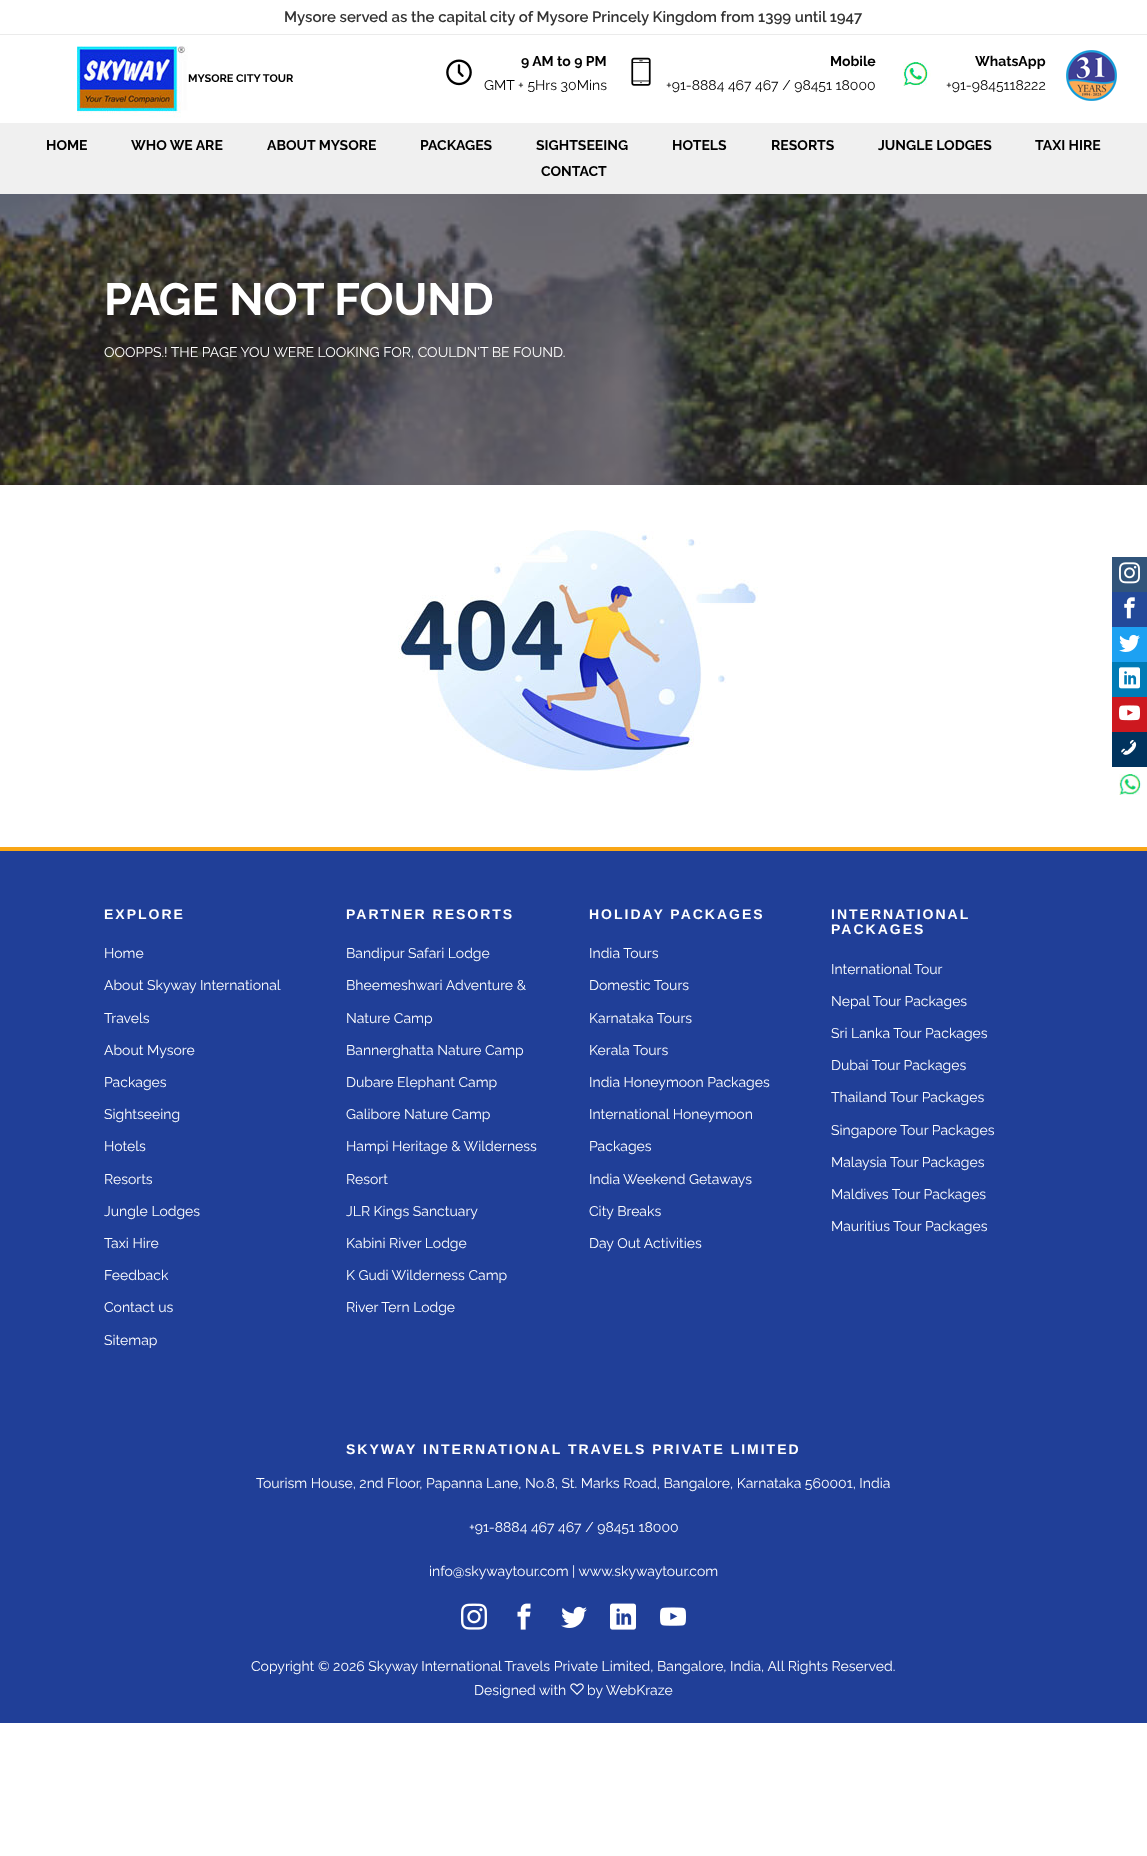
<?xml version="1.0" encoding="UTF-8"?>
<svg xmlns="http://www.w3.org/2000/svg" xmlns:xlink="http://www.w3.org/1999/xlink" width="1147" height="1856">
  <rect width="100%" height="100%" fill="#ffffff" />
  <rect y="34" width="1147" height="1" fill="#ebebeb" />
  <image x="77" y="46" width="111" height="72" xlink:href="image1.png" />
  <image x="446" y="59" width="26" height="27" xlink:href="image2.png" />
  <image x="631" y="57" width="20" height="29" xlink:href="image3.png" />
  <image x="903" y="62" width="28" height="24" xlink:href="image4.png" />
  <image x="1066" y="50" width="51" height="51" xlink:href="image5.png" />
  <rect y="123" width="1147" height="71" fill="#f0f0f0" />
  <image x="0" y="194" width="1147" height="291" xlink:href="image6.png" />
  <image x="398" y="530" width="360" height="241" xlink:href="image7.png" />
  <rect x="1112" y="557" width="35" height="35" fill="#31547a" />
  <image x="1119" y="562" width="21" height="22" xlink:href="image8.png" />
  <rect x="1112" y="592" width="35" height="35" fill="#234999" />
  <image x="1124" y="597" width="11" height="22" xlink:href="image9.png" />
  <rect x="1112" y="627" width="35" height="35" fill="#1da1f2" />
  <image x="1119" y="634" width="21" height="18" xlink:href="image10.png" />
  <rect x="1112" y="662" width="35" height="35" fill="#007bb6" />
  <image x="1119" y="667" width="21" height="22" xlink:href="image11.png" />
  <rect x="1112" y="697" width="35" height="35" fill="#cd181f" />
  <image x="1119" y="705" width="21" height="16" xlink:href="image12.png" />
  <rect x="1112" y="732" width="35" height="35" fill="#00335e" />
  <image x="1121" y="740" width="16" height="15" xlink:href="image13.png" />
  <image x="1119" y="774" width="23" height="21" xlink:href="image14.png" />
  <rect y="851" width="1147" height="872" fill="#203f98" />
  <rect y="847" width="1147" height="4" fill="#f9a615" />
  <image x="461" y="1603" width="26" height="27" xlink:href="image15.png" />
  <image x="517" y="1603" width="14" height="27" xlink:href="image16.png" />
  <image x="561" y="1606" width="26" height="22" xlink:href="image17.png" />
  <image x="610" y="1603" width="26" height="27" xlink:href="image18.png" />
  <image x="660" y="1607" width="26" height="19" xlink:href="image19.png" />
  <image x="570" y="1683" width="14" height="12" xlink:href="image20.png" />
  <text x="284" y="22" style="font-family: Raleway; font-size: 15px; font-weight: 600; fill: #333333">Mysore served as the capital city of Mysore Princely Kingdom from 1399 until 1947</text>
  <text x="188" y="82" style="font-family: Raleway; font-size: 11px; font-weight: bold; fill: #000000">MYSORE CITY TOUR</text>
  <text x="521" y="66" style="font-family: Raleway; font-size: 14px; font-weight: bold; fill: #000000">9 AM to 9 PM</text>
  <text x="484" y="90" style="font-family: Raleway; font-size: 14px; fill: #000000">GMT + 5Hrs 30Mins</text>
  <text x="830" y="66" style="font-family: Raleway; font-size: 14px; font-weight: bold; fill: #000000">Mobile</text>
  <text x="666" y="90" style="font-family: Raleway; font-size: 14px; fill: #000000">+91-8884 467 467 / 98451 18000</text>
  <text x="975" y="66" style="font-family: Raleway; font-size: 14px; font-weight: bold; fill: #000000">WhatsApp</text>
  <text x="946" y="90" style="font-family: Raleway; font-size: 14px; fill: #000000">+91-9845118222</text>
  <text x="46" y="150" style="font-family: Raleway; font-size: 14px; font-weight: bold; fill: #000000">HOME</text>
  <text x="131" y="150" style="font-family: Raleway; font-size: 14px; font-weight: bold; fill: #000000">WHO WE ARE</text>
  <text x="267" y="150" style="font-family: Raleway; font-size: 14px; font-weight: bold; fill: #000000">ABOUT MYSORE</text>
  <text x="420" y="150" style="font-family: Raleway; font-size: 14px; font-weight: bold; fill: #000000">PACKAGES</text>
  <text x="536" y="150" style="font-family: Raleway; font-size: 14px; font-weight: bold; fill: #000000">SIGHTSEEING</text>
  <text x="672" y="150" style="font-family: Raleway; font-size: 14px; font-weight: bold; fill: #000000">HOTELS</text>
  <text x="771" y="150" style="font-family: Raleway; font-size: 14px; font-weight: bold; fill: #000000">RESORTS</text>
  <text x="878" y="150" style="font-family: Raleway; font-size: 14px; font-weight: bold; fill: #000000">JUNGLE LODGES</text>
  <text x="1035" y="150" style="font-family: Raleway; font-size: 14px; font-weight: bold; fill: #000000">TAXI HIRE</text>
  <text x="541" y="176" style="font-family: Raleway; font-size: 14px; font-weight: bold; fill: #000000">CONTACT</text>
  <text x="104" y="315" style="font-family: Raleway; font-size: 45px; font-weight: bold; fill: #ffffff">PAGE NOT FOUND</text>
  <text x="104" y="357" style="font-family: Raleway; font-size: 14px; fill: #ffffff">OOOPPS.! THE PAGE YOU WERE LOOKING FOR, COULDN'T BE FOUND.</text>
  <text x="104" y="919" style="font-family: Liberation Sans; font-size: 14px; font-weight: bold; letter-spacing: 2px; fill: #ffffff">EXPLORE</text>
  <text x="104" y="958" style="font-family: Raleway; font-size: 14px; fill: #ffffff">Home</text>
  <text x="104" y="990" style="font-family: Raleway; font-size: 14px; fill: #ffffff">About Skyway International</text>
  <text x="104" y="1023" style="font-family: Raleway; font-size: 14px; fill: #ffffff">Travels</text>
  <text x="104" y="1055" style="font-family: Raleway; font-size: 14px; fill: #ffffff">About Mysore</text>
  <text x="104" y="1087" style="font-family: Raleway; font-size: 14px; fill: #ffffff">Packages</text>
  <text x="104" y="1119" style="font-family: Raleway; font-size: 14px; fill: #ffffff">Sightseeing</text>
  <text x="104" y="1151" style="font-family: Raleway; font-size: 14px; fill: #ffffff">Hotels</text>
  <text x="104" y="1184" style="font-family: Raleway; font-size: 14px; fill: #ffffff">Resorts</text>
  <text x="104" y="1216" style="font-family: Raleway; font-size: 14px; fill: #ffffff">Jungle Lodges</text>
  <text x="104" y="1248" style="font-family: Raleway; font-size: 14px; fill: #ffffff">Taxi Hire</text>
  <text x="104" y="1280" style="font-family: Raleway; font-size: 14px; fill: #ffffff">Feedback</text>
  <text x="104" y="1312" style="font-family: Raleway; font-size: 14px; fill: #ffffff">Contact us</text>
  <text x="104" y="1345" style="font-family: Raleway; font-size: 14px; fill: #ffffff">Sitemap</text>
  <text x="346" y="919" style="font-family: Liberation Sans; font-size: 14px; font-weight: bold; letter-spacing: 2px; fill: #ffffff">PARTNER RESORTS</text>
  <text x="346" y="958" style="font-family: Raleway; font-size: 14px; fill: #ffffff">Bandipur Safari Lodge</text>
  <text x="346" y="990" style="font-family: Raleway; font-size: 14px; fill: #ffffff">Bheemeshwari Adventure &amp;</text>
  <text x="346" y="1023" style="font-family: Raleway; font-size: 14px; fill: #ffffff">Nature Camp</text>
  <text x="346" y="1055" style="font-family: Raleway; font-size: 14px; fill: #ffffff">Bannerghatta Nature Camp</text>
  <text x="346" y="1087" style="font-family: Raleway; font-size: 14px; fill: #ffffff">Dubare Elephant Camp</text>
  <text x="346" y="1119" style="font-family: Raleway; font-size: 14px; fill: #ffffff">Galibore Nature Camp</text>
  <text x="346" y="1151" style="font-family: Raleway; font-size: 14px; fill: #ffffff">Hampi Heritage &amp; Wilderness</text>
  <text x="346" y="1184" style="font-family: Raleway; font-size: 14px; fill: #ffffff">Resort</text>
  <text x="346" y="1216" style="font-family: Raleway; font-size: 14px; fill: #ffffff">JLR Kings Sanctuary</text>
  <text x="346" y="1248" style="font-family: Raleway; font-size: 14px; fill: #ffffff">Kabini River Lodge</text>
  <text x="346" y="1280" style="font-family: Raleway; font-size: 14px; fill: #ffffff">K Gudi Wilderness Camp</text>
  <text x="346" y="1312" style="font-family: Raleway; font-size: 14px; fill: #ffffff">River Tern Lodge</text>
  <text x="589" y="919" style="font-family: Liberation Sans; font-size: 14px; font-weight: bold; letter-spacing: 2px; fill: #ffffff">HOLIDAY PACKAGES</text>
  <text x="589" y="958" style="font-family: Raleway; font-size: 14px; fill: #ffffff">India Tours</text>
  <text x="589" y="990" style="font-family: Raleway; font-size: 14px; fill: #ffffff">Domestic Tours</text>
  <text x="589" y="1023" style="font-family: Raleway; font-size: 14px; fill: #ffffff">Karnataka Tours</text>
  <text x="589" y="1055" style="font-family: Raleway; font-size: 14px; fill: #ffffff">Kerala Tours</text>
  <text x="589" y="1087" style="font-family: Raleway; font-size: 14px; fill: #ffffff">India Honeymoon Packages</text>
  <text x="589" y="1119" style="font-family: Raleway; font-size: 14px; fill: #ffffff">International Honeymoon</text>
  <text x="589" y="1151" style="font-family: Raleway; font-size: 14px; fill: #ffffff">Packages</text>
  <text x="589" y="1184" style="font-family: Raleway; font-size: 14px; fill: #ffffff">India Weekend Getaways</text>
  <text x="589" y="1216" style="font-family: Raleway; font-size: 14px; fill: #ffffff">City Breaks</text>
  <text x="589" y="1248" style="font-family: Raleway; font-size: 14px; fill: #ffffff">Day Out Activities</text>
  <text x="831" y="919" style="font-family: Liberation Sans; font-size: 14px; font-weight: bold; letter-spacing: 2px; fill: #ffffff">INTERNATIONAL</text>
  <text x="831" y="934" style="font-family: Liberation Sans; font-size: 14px; font-weight: bold; letter-spacing: 2px; fill: #ffffff">PACKAGES</text>
  <text x="831" y="974" style="font-family: Raleway; font-size: 14px; fill: #ffffff">International</text>
  <text x="914" y="974" style="font-family: Raleway; font-size: 14px; fill: #ffffff">Tour</text>
  <text x="831" y="1006" style="font-family: Raleway; font-size: 14px; fill: #ffffff">Nepal Tour Packages</text>
  <text x="831" y="1038" style="font-family: Raleway; font-size: 14px; fill: #ffffff">Sri Lanka Tour Packages</text>
  <text x="831" y="1070" style="font-family: Raleway; font-size: 14px; fill: #ffffff">Dubai Tour Packages</text>
  <text x="831" y="1102" style="font-family: Raleway; font-size: 14px; fill: #ffffff">Thailand Tour Packages</text>
  <text x="831" y="1135" style="font-family: Raleway; font-size: 14px; fill: #ffffff">Singapore Tour Packages</text>
  <text x="831" y="1167" style="font-family: Raleway; font-size: 14px; fill: #ffffff">Malaysia Tour Packages</text>
  <text x="831" y="1199" style="font-family: Raleway; font-size: 14px; fill: #ffffff">Maldives Tour Packages</text>
  <text x="831" y="1231" style="font-family: Raleway; font-size: 14px; fill: #ffffff">Mauritius Tour Packages</text>
  <text x="346" y="1454" style="font-family: Liberation Sans; font-size: 14px; font-weight: bold; letter-spacing: 2px; fill: #ffffff">SKYWAY INTERNATIONAL TRAVELS PRIVATE LIMITED</text>
  <text x="256" y="1488" style="font-family: Raleway; font-size: 14px; fill: #ffffff">Tourism House, 2nd Floor, Papanna Lane, No.8, St. Marks Road, Bangalore, Karnataka 560001, India</text>
  <text x="469" y="1532" style="font-family: Raleway; font-size: 14px; fill: #ffffff">+91-8884 467 467 / 98451 18000</text>
  <text x="429" y="1576" style="font-family: Raleway; font-size: 14px; fill: #ffffff">info@skywaytour.com | www.skywaytour.com</text>
  <text x="251" y="1671" style="font-family: Raleway; font-size: 14px; fill: #ffffff">Copyright © 2026 Skyway International Travels Private Limited, Bangalore, India, All Rights Reserved.</text>
  <text x="474" y="1695" style="font-family: Raleway; font-size: 14px; fill: #ffffff">Designed with</text>
  <text x="587" y="1695" style="font-family: Raleway; font-size: 14px; fill: #ffffff">by WebKraze</text>
</svg>
